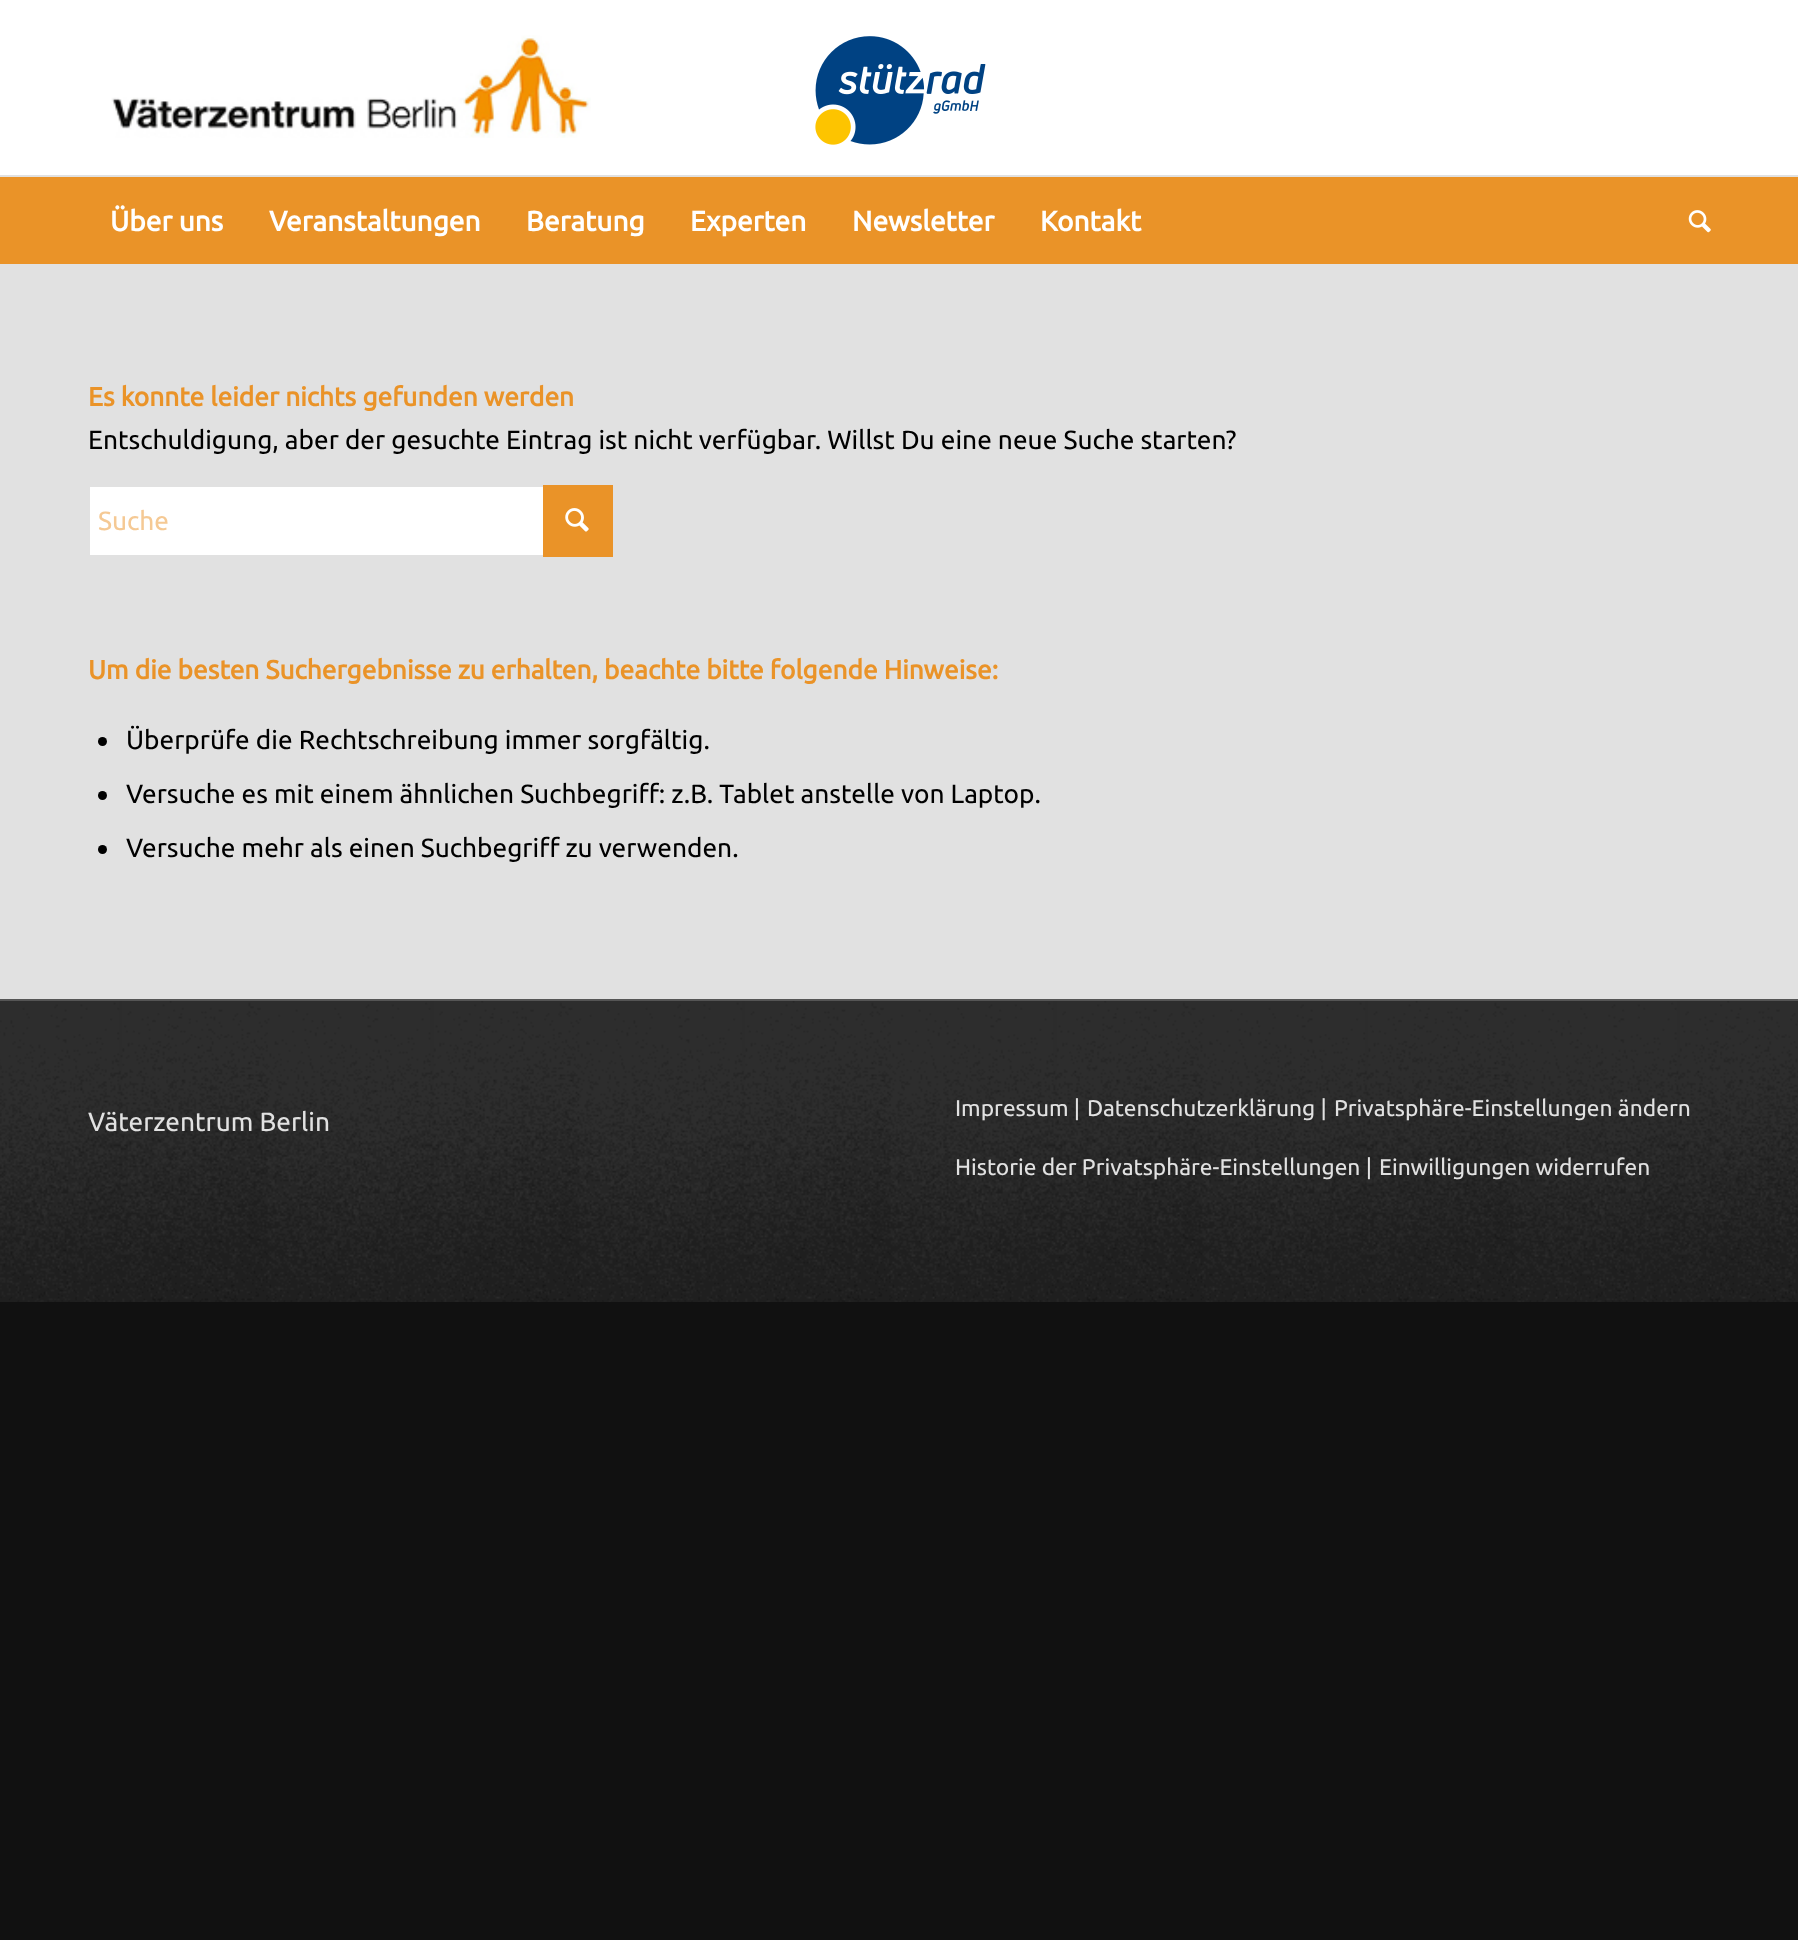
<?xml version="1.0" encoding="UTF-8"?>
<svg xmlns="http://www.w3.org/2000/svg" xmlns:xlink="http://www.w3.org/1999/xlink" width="1798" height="1940">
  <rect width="100%" height="100%" fill="#111111" />
  <rect width="1798" height="175" fill="#ffffff" />
  <image x="815" y="36" width="171" height="109" xlink:href="image1.png" />
  <image x="111" y="35" width="480" height="103" xlink:href="image2.png" />
  <rect y="177" width="1798" height="87" fill="#ea9328" />
  <rect y="175" width="1798" height="2" fill="#e1e1e1" />
  <image x="1688" y="210" width="23" height="23" xlink:href="image3.png" />
  <rect y="264" width="1798" height="735" fill="#e1e1e1" />
  <rect x="90" y="487" width="453" height="68" fill="#ffffff" />
  <rect x="543" y="485" width="70" height="72" fill="#ea9328" />
  <image x="565" y="508" width="24" height="24" xlink:href="image4.png" />
  <circle cx="102.5" cy="741.5" r="4.5" fill="#000000" />
  <circle cx="102.5" cy="795.5" r="4.5" fill="#000000" />
  <circle cx="102.5" cy="849.5" r="4.5" fill="#000000" />
  <image x="0" y="1001" width="1798" height="301" xlink:href="image5.png" />
  <rect y="999" width="1798" height="2" fill="#555555" />
  <text x="110" y="231" style="font-family: Ubuntu; font-size: 28px; font-weight: bold; fill: #ffffff">Über uns</text>
  <text x="269" y="231" style="font-family: Ubuntu; font-size: 28px; font-weight: bold; fill: #ffffff">Veranstaltungen</text>
  <text x="526" y="231" style="font-family: Ubuntu; font-size: 28px; font-weight: bold; fill: #ffffff">Beratung</text>
  <text x="690" y="231" style="font-family: Ubuntu; font-size: 28px; font-weight: bold; fill: #ffffff">Experten</text>
  <text x="852" y="231" style="font-family: Ubuntu; font-size: 28px; font-weight: bold; fill: #ffffff">Newsletter</text>
  <text x="1040" y="231" style="font-family: Ubuntu; font-size: 28px; font-weight: bold; fill: #ffffff">Kontakt</text>
  <text x="88" y="406" style="font-family: Ubuntu; font-size: 26.25px; font-weight: bold; fill: #ea9328">Es konnte leider nichts gefunden werden</text>
  <text x="88" y="449" style="font-family: Ubuntu; font-size: 26.25px; fill: #000000">Entschuldigung, aber der gesuchte Eintrag ist nicht verfügbar. Willst Du eine neue Suche starten?</text>
  <text x="98" y="530" style="font-family: Ubuntu; font-size: 26.25px; fill: #f5c994">Suche</text>
  <text x="88" y="679" style="font-family: Ubuntu; font-size: 26.25px; font-weight: bold; fill: #ea9328">Um die besten Suchergebnisse zu erhalten, beachte bitte folgende Hinweise:</text>
  <text x="126" y="749" style="font-family: Ubuntu; font-size: 26.25px; fill: #000000">Überprüfe die Rechtschreibung immer sorgfältig.</text>
  <text x="126" y="803" style="font-family: Ubuntu; font-size: 26.25px; fill: #000000">Versuche es mit einem ähnlichen Suchbegriff: z.B. Tablet anstelle von Laptop.</text>
  <text x="126" y="857" style="font-family: Ubuntu; font-size: 26.25px; fill: #000000">Versuche mehr als einen Suchbegriff zu verwenden.</text>
  <text x="88" y="1131" style="font-family: Ubuntu; font-size: 26.25px; fill: #e1e1e1">Väterzentrum Berlin</text>
  <text x="955" y="1116" style="font-family: Ubuntu; font-size: 22.75px; fill: #e1e1e1">Impressum |</text>
  <text x="1087" y="1116" style="font-family: Ubuntu; font-size: 22.75px; fill: #e1e1e1">Datenschutzerklärung |</text>
  <text x="1334" y="1116" style="font-family: Ubuntu; font-size: 22.75px; fill: #e1e1e1">Privatsphäre-Einstellungen ändern</text>
  <text x="955" y="1175" style="font-family: Ubuntu; font-size: 22.75px; fill: #e1e1e1">Historie der Privatsphäre-Einstellungen |</text>
  <text x="1379" y="1175" style="font-family: Ubuntu; font-size: 22.75px; fill: #e1e1e1">Einwilligungen widerrufen</text>
</svg>
